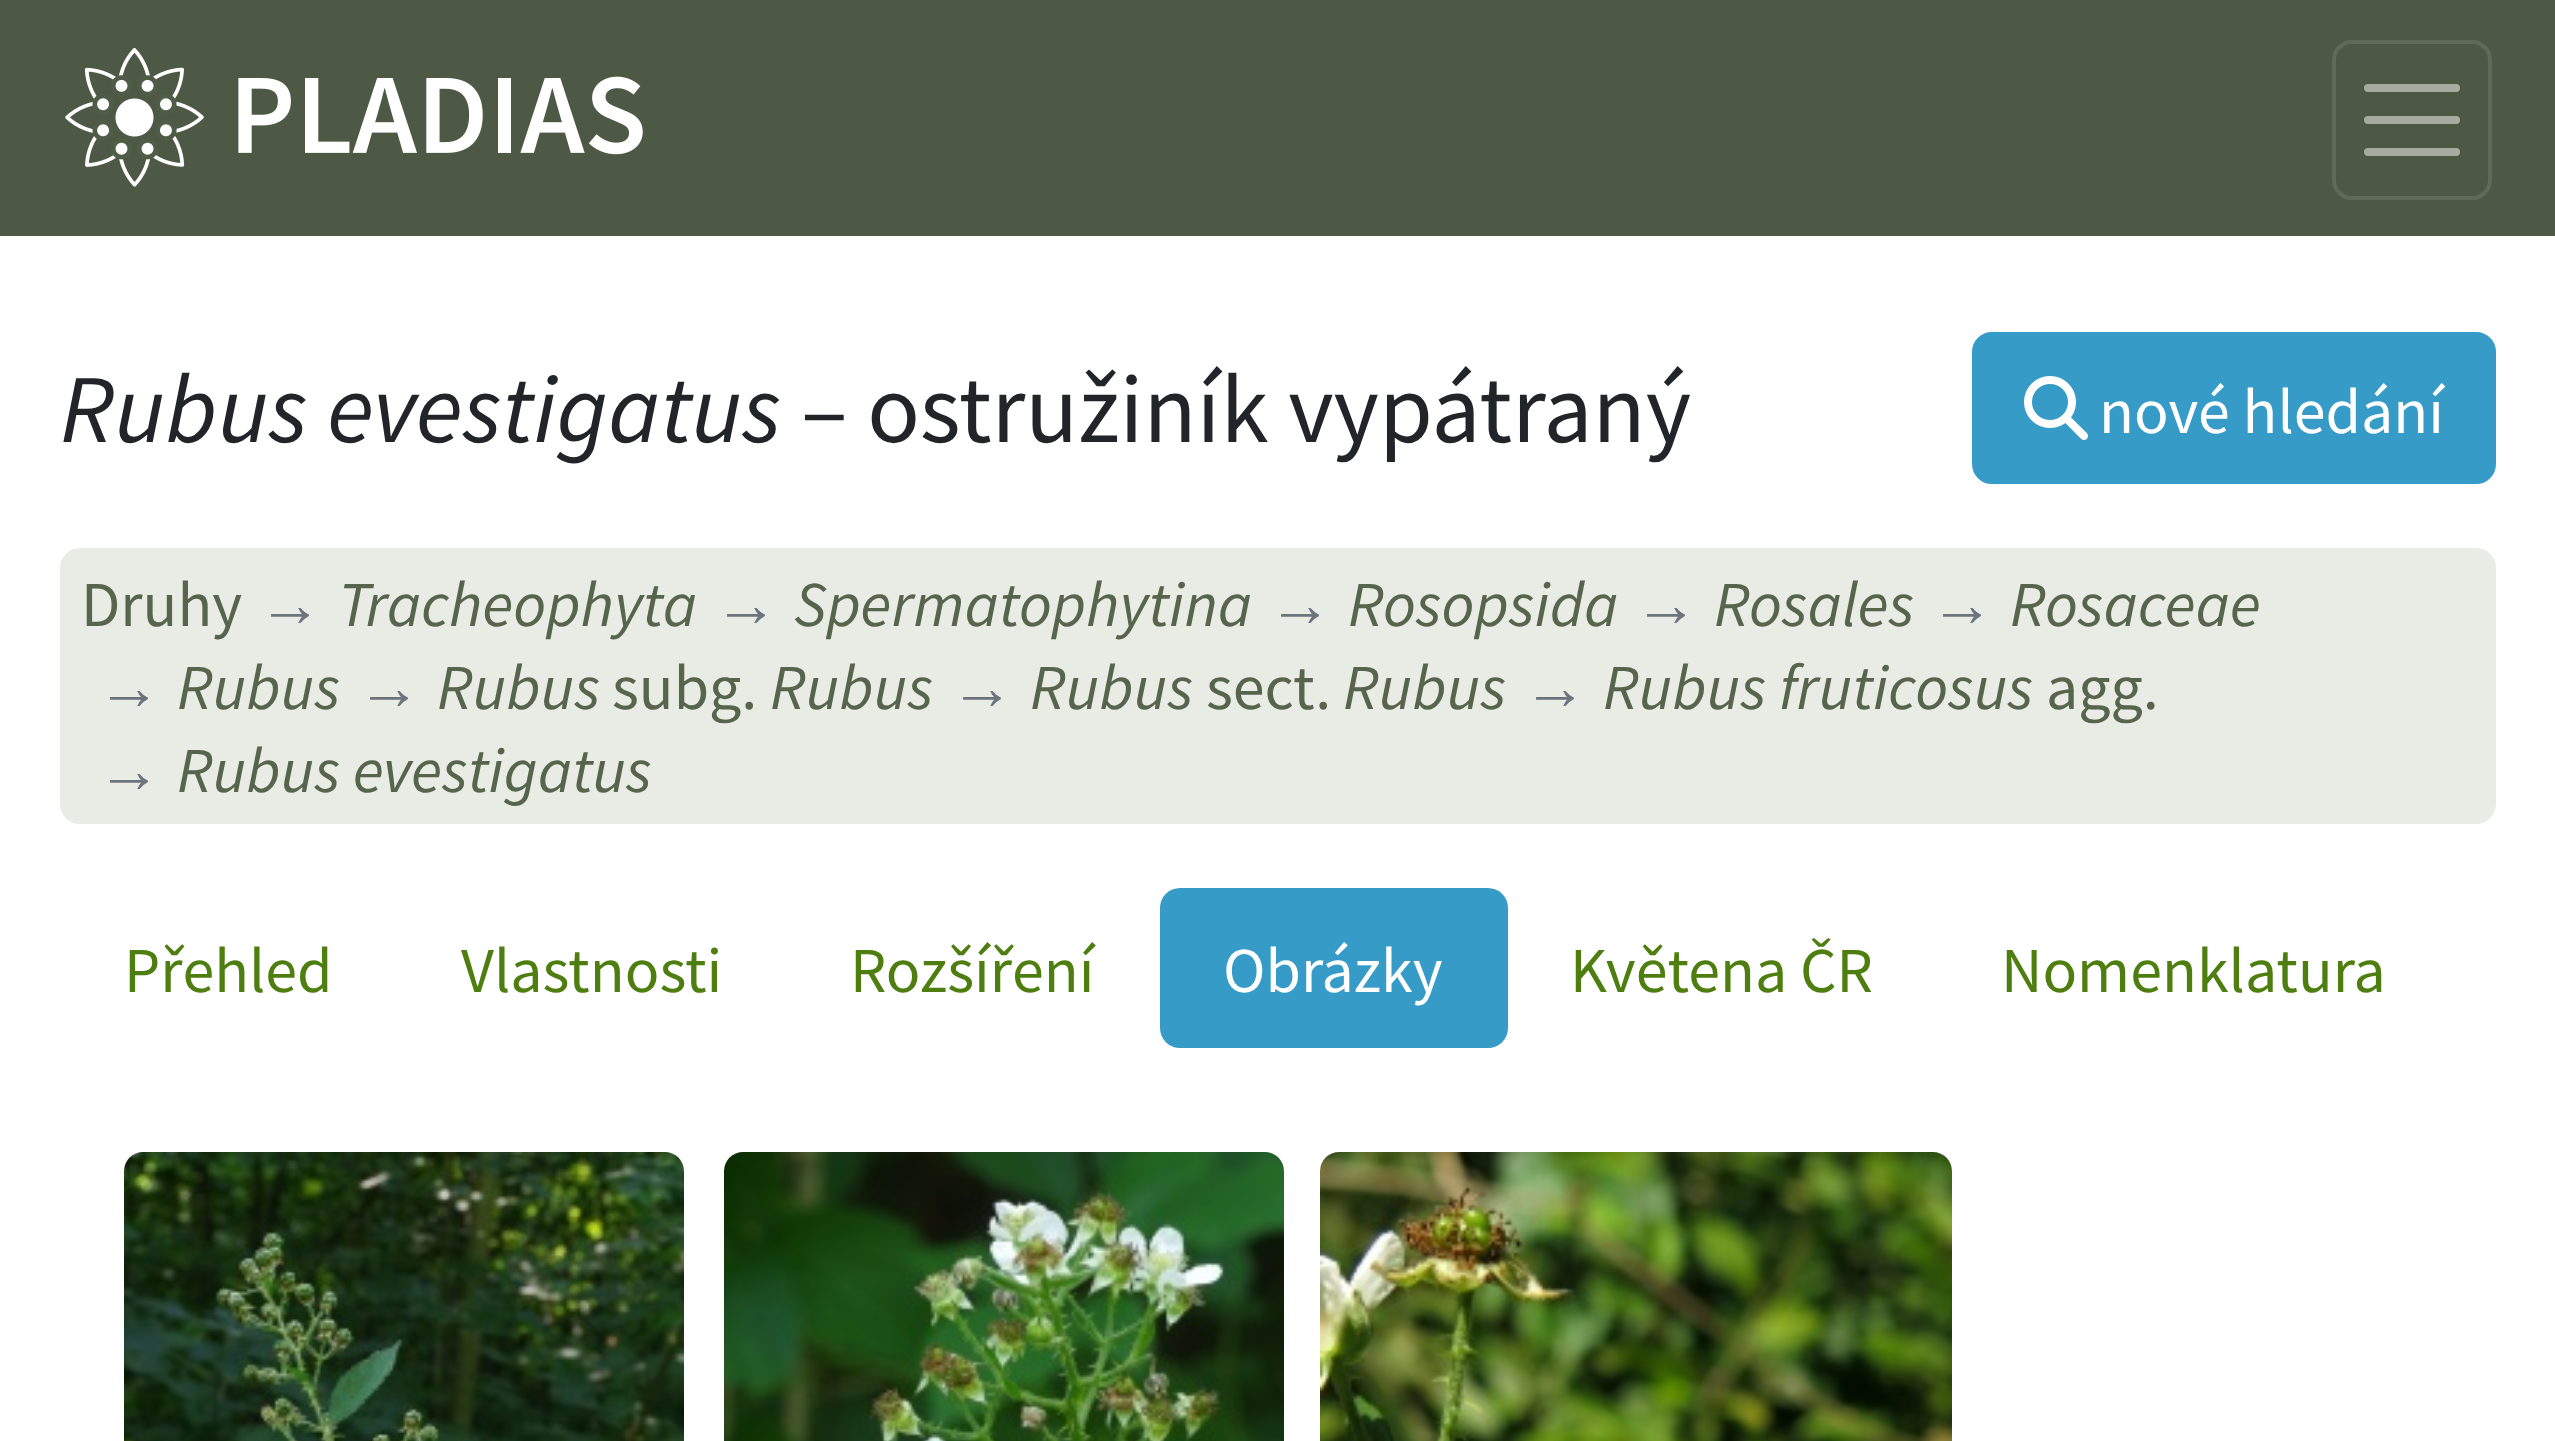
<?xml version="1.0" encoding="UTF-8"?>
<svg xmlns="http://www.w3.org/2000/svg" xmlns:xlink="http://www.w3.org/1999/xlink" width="2555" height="1441">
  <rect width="100%" height="100%" fill="#ffffff" />
  <rect width="2555" height="236" fill="#4d5944" />
  <image x="65" y="48" width="578" height="139" xlink:href="image1.png" />
  <rect x="2334" y="42" width="156" height="156" rx="18" fill="none" stroke="#5f6a57" stroke-width="4" />
  <path d="M 2368 88 h 88 m -88 32 h 88 m -88 32 h 88" fill="none" stroke="#a6aca2" stroke-width="8" stroke-linecap="round" />
  <rect x="1974" y="334" width="520" height="148" rx="18" fill="#379bc8" stroke="#379bc8" stroke-width="4" />
  <image x="2024" y="376" width="64" height="64" xlink:href="image2.png" />
  <rect x="60" y="548" width="2436" height="276" rx="20" fill="#e8ece5" />
  <rect x="1160" y="888" width="348" height="160" rx="20" fill="#379bc8" />
  <image x="124" y="1152" width="560" height="289" xlink:href="image3.png" />
  <image x="724" y="1152" width="560" height="289" xlink:href="image4.png" />
  <image x="1320" y="1152" width="632" height="289" xlink:href="image5.png" />
  <text x="60" y="442" style="font-family: Source Sans Pro; font-size: 97.25px; font-style: italic; fill: #212529">Rubus evestigatus</text>
  <text x="801" y="442" style="font-family: Source Sans Pro; font-size: 97.25px; fill: #212529">– ostružiník vypátraný</text>
  <text x="2099" y="433" style="font-family: Source Sans Pro; font-size: 64px; fill: #ffffff">nové hledání</text>
  <text x="81" y="626" style="font-family: Source Sans Pro; font-size: 64px; fill: #57654d">Druhy</text>
  <text x="258" y="626" style="font-family: Liberation Serif; font-size: 64px; fill: #6c757d">→</text>
  <text x="338" y="626" style="font-family: Source Sans Pro; font-size: 64px; font-style: italic; fill: #57654d">Tracheophyta</text>
  <text x="714" y="626" style="font-family: Liberation Serif; font-size: 64px; fill: #6c757d">→</text>
  <text x="794" y="626" style="font-family: Source Sans Pro; font-size: 64px; font-style: italic; fill: #57654d">Spermatophytina</text>
  <text x="1268" y="626" style="font-family: Liberation Serif; font-size: 64px; fill: #6c757d">→</text>
  <text x="1348" y="626" style="font-family: Source Sans Pro; font-size: 64px; font-style: italic; fill: #57654d">Rosopsida</text>
  <text x="1634" y="626" style="font-family: Liberation Serif; font-size: 64px; fill: #6c757d">→</text>
  <text x="1714" y="626" style="font-family: Source Sans Pro; font-size: 64px; font-style: italic; fill: #57654d">Rosales</text>
  <text x="1930" y="626" style="font-family: Liberation Serif; font-size: 64px; fill: #6c757d">→</text>
  <text x="2010" y="626" style="font-family: Source Sans Pro; font-size: 64px; font-style: italic; fill: #57654d">Rosaceae</text>
  <text x="97" y="709" style="font-family: Liberation Serif; font-size: 64px; fill: #6c757d">→</text>
  <text x="177" y="709" style="font-family: Source Sans Pro; font-size: 64px; font-style: italic; fill: #57654d">Rubus</text>
  <text x="357" y="709" style="font-family: Liberation Serif; font-size: 64px; fill: #6c757d">→</text>
  <text x="437" y="709" style="font-family: Source Sans Pro; font-size: 64px; font-style: italic; fill: #57654d">Rubus</text>
  <text x="612" y="709" style="font-family: Source Sans Pro; font-size: 64px; fill: #57654d">subg.</text>
  <text x="770" y="709" style="font-family: Source Sans Pro; font-size: 64px; font-style: italic; fill: #57654d">Rubus</text>
  <text x="950" y="709" style="font-family: Liberation Serif; font-size: 64px; fill: #6c757d">→</text>
  <text x="1030" y="709" style="font-family: Source Sans Pro; font-size: 64px; font-style: italic; fill: #57654d">Rubus</text>
  <text x="1206" y="709" style="font-family: Source Sans Pro; font-size: 64px; fill: #57654d">sect.</text>
  <text x="1343" y="709" style="font-family: Source Sans Pro; font-size: 64px; font-style: italic; fill: #57654d">Rubus</text>
  <text x="1523" y="709" style="font-family: Liberation Serif; font-size: 64px; fill: #6c757d">→</text>
  <text x="1603" y="709" style="font-family: Source Sans Pro; font-size: 64px; font-style: italic; fill: #57654d">Rubus fruticosus</text>
  <text x="2046" y="709" style="font-family: Source Sans Pro; font-size: 64px; fill: #57654d">agg.</text>
  <text x="97" y="792" style="font-family: Liberation Serif; font-size: 64px; fill: #6c757d">→</text>
  <text x="177" y="792" style="font-family: Source Sans Pro; font-size: 64px; font-style: italic; fill: #57654d">Rubus evestigatus</text>
  <text x="124" y="992" style="font-family: Source Sans Pro; font-size: 64px; fill: #4e7e0f">Přehled</text>
  <text x="461" y="992" style="font-family: Source Sans Pro; font-size: 64px; fill: #4e7e0f">Vlastnosti</text>
  <text x="850" y="992" style="font-family: Source Sans Pro; font-size: 64px; fill: #4e7e0f">Rozšíření</text>
  <text x="1223" y="992" style="font-family: Source Sans Pro; font-size: 64px; fill: #ffffff">Obrázky</text>
  <text x="1570" y="992" style="font-family: Source Sans Pro; font-size: 64px; fill: #4e7e0f">Květena ČR</text>
  <text x="2001" y="992" style="font-family: Source Sans Pro; font-size: 64px; fill: #4e7e0f">Nomenklatura</text>
</svg>
